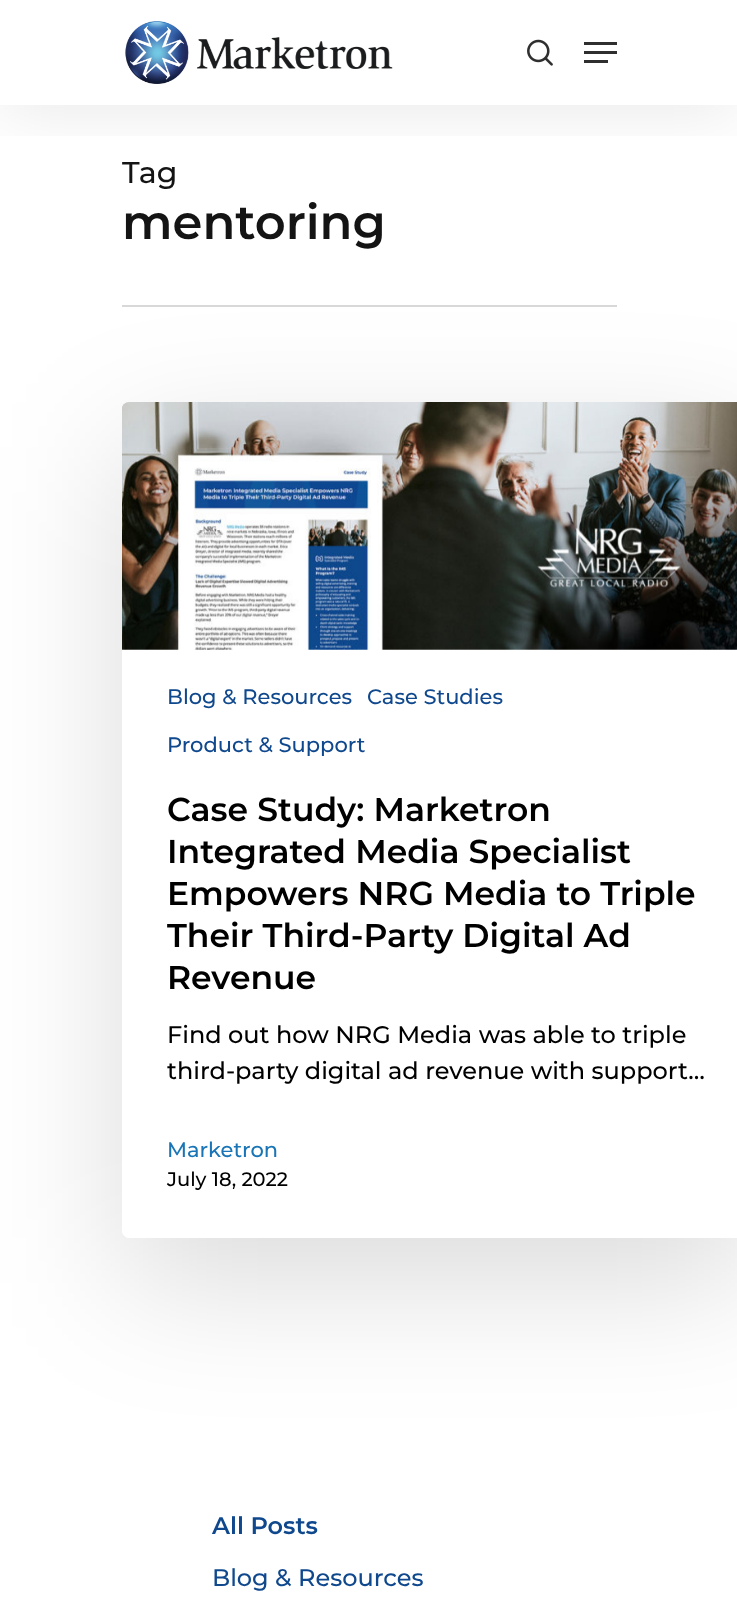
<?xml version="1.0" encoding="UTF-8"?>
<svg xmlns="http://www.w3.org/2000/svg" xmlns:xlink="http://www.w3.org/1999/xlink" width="737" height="1624">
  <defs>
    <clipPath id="clip1"><rect x="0" y="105" width="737" height="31" /></clipPath>
    <clipPath id="clip2"><path d="M 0 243 h 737 v 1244 h -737 z m 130 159 h 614 c 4.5 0 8 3.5 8 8 v 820 c 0 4.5 -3.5 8 -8 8 h -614 c -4.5 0 -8 -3.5 -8 -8 v -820 c 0 -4.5 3.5 -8 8 -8 z" clip-rule="evenodd" /></clipPath>
  </defs>
  <rect width="100%" height="100%" fill="#ffffff" />
  <g clip-path="url(#clip1)">
    <rect y="5" width="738" height="105" fill="#000000" fill-opacity="0.09" filter="blur(34px)" />
  </g>
  <image x="125" y="21" width="268" height="63" xlink:href="image1.png" />
  <image x="527" y="39" width="26" height="27" xlink:href="image2.png" />
  <rect x="584" y="42" width="33" height="3" fill="#2f2f2f" />
  <rect x="584" y="60" width="24" height="3" fill="#2f2f2f" />
  <rect x="584" y="51" width="33" height="3" fill="#2f2f2f" />
  <g clip-path="url(#clip2)">
    <rect x="122" y="447" width="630" height="836" rx="8" fill="#000000" fill-opacity="0.14" filter="blur(67.5px)" />
  </g>
  <rect x="122" y="305" width="495" height="2" fill="#d8d8d8" />
  <image x="122" y="402" width="615" height="248" xlink:href="image3.png" />
  <path d="M 122 776 h 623 v 454 c 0 4.5 -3.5 8 -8 8 h -607 c -4.5 0 -8 -3.5 -8 -8 z" fill="#ffffff" />
  <text x="122" y="183" style="font-family: Montserrat; font-size: 30px; font-weight: 500; fill: #141414">Tag</text>
  <text x="122" y="239" style="font-family: Montserrat; font-size: 48px; font-weight: 600; fill: #141414">mentoring</text>
  <text x="167" y="704" style="font-family: Montserrat; font-size: 21px; font-weight: 500; fill: #0f488d">Blog &amp; Resources</text>
  <text x="367" y="704" style="font-family: Montserrat; font-size: 21px; font-weight: 500; fill: #0f488d">Case Studies</text>
  <text x="167" y="752" style="font-family: Montserrat; font-size: 21px; font-weight: 500; fill: #0f488d">Product &amp; Support</text>
  <text x="167" y="821" style="font-family: Montserrat; font-size: 33px; font-weight: 600; fill: #000000">Case Study: Marketron</text>
  <text x="167" y="863" style="font-family: Montserrat; font-size: 33px; font-weight: 600; fill: #000000">Integrated Media Specialist</text>
  <text x="167" y="905" style="font-family: Montserrat; font-size: 33px; font-weight: 600; fill: #000000">Empowers NRG Media to Triple</text>
  <text x="167" y="947" style="font-family: Montserrat; font-size: 33px; font-weight: 600; fill: #000000">Their Third-Party Digital Ad</text>
  <text x="167" y="989" style="font-family: Montserrat; font-size: 33px; font-weight: 600; fill: #000000">Revenue</text>
  <text x="167" y="1043" style="font-family: Montserrat; font-size: 24px; font-weight: 500; fill: #000000">Find out how NRG Media was able to triple</text>
  <text x="167" y="1079" style="font-family: Montserrat; font-size: 24px; font-weight: 500; fill: #000000">third-party digital ad revenue with support…</text>
  <text x="167" y="1157" style="font-family: Montserrat; font-size: 21px; font-weight: 500; fill: #1975b5">Marketron</text>
  <text x="167" y="1186" style="font-family: Montserrat; font-size: 19.5px; font-weight: 500; fill: #000000">July 18, 2022</text>
  <text x="212" y="1534" style="font-family: Montserrat; font-size: 24px; font-weight: 600; fill: #0f488d">All Posts</text>
  <text x="212" y="1586" style="font-family: Montserrat; font-size: 24px; font-weight: 500; fill: #0f488d">Blog &amp; Resources</text>
</svg>
